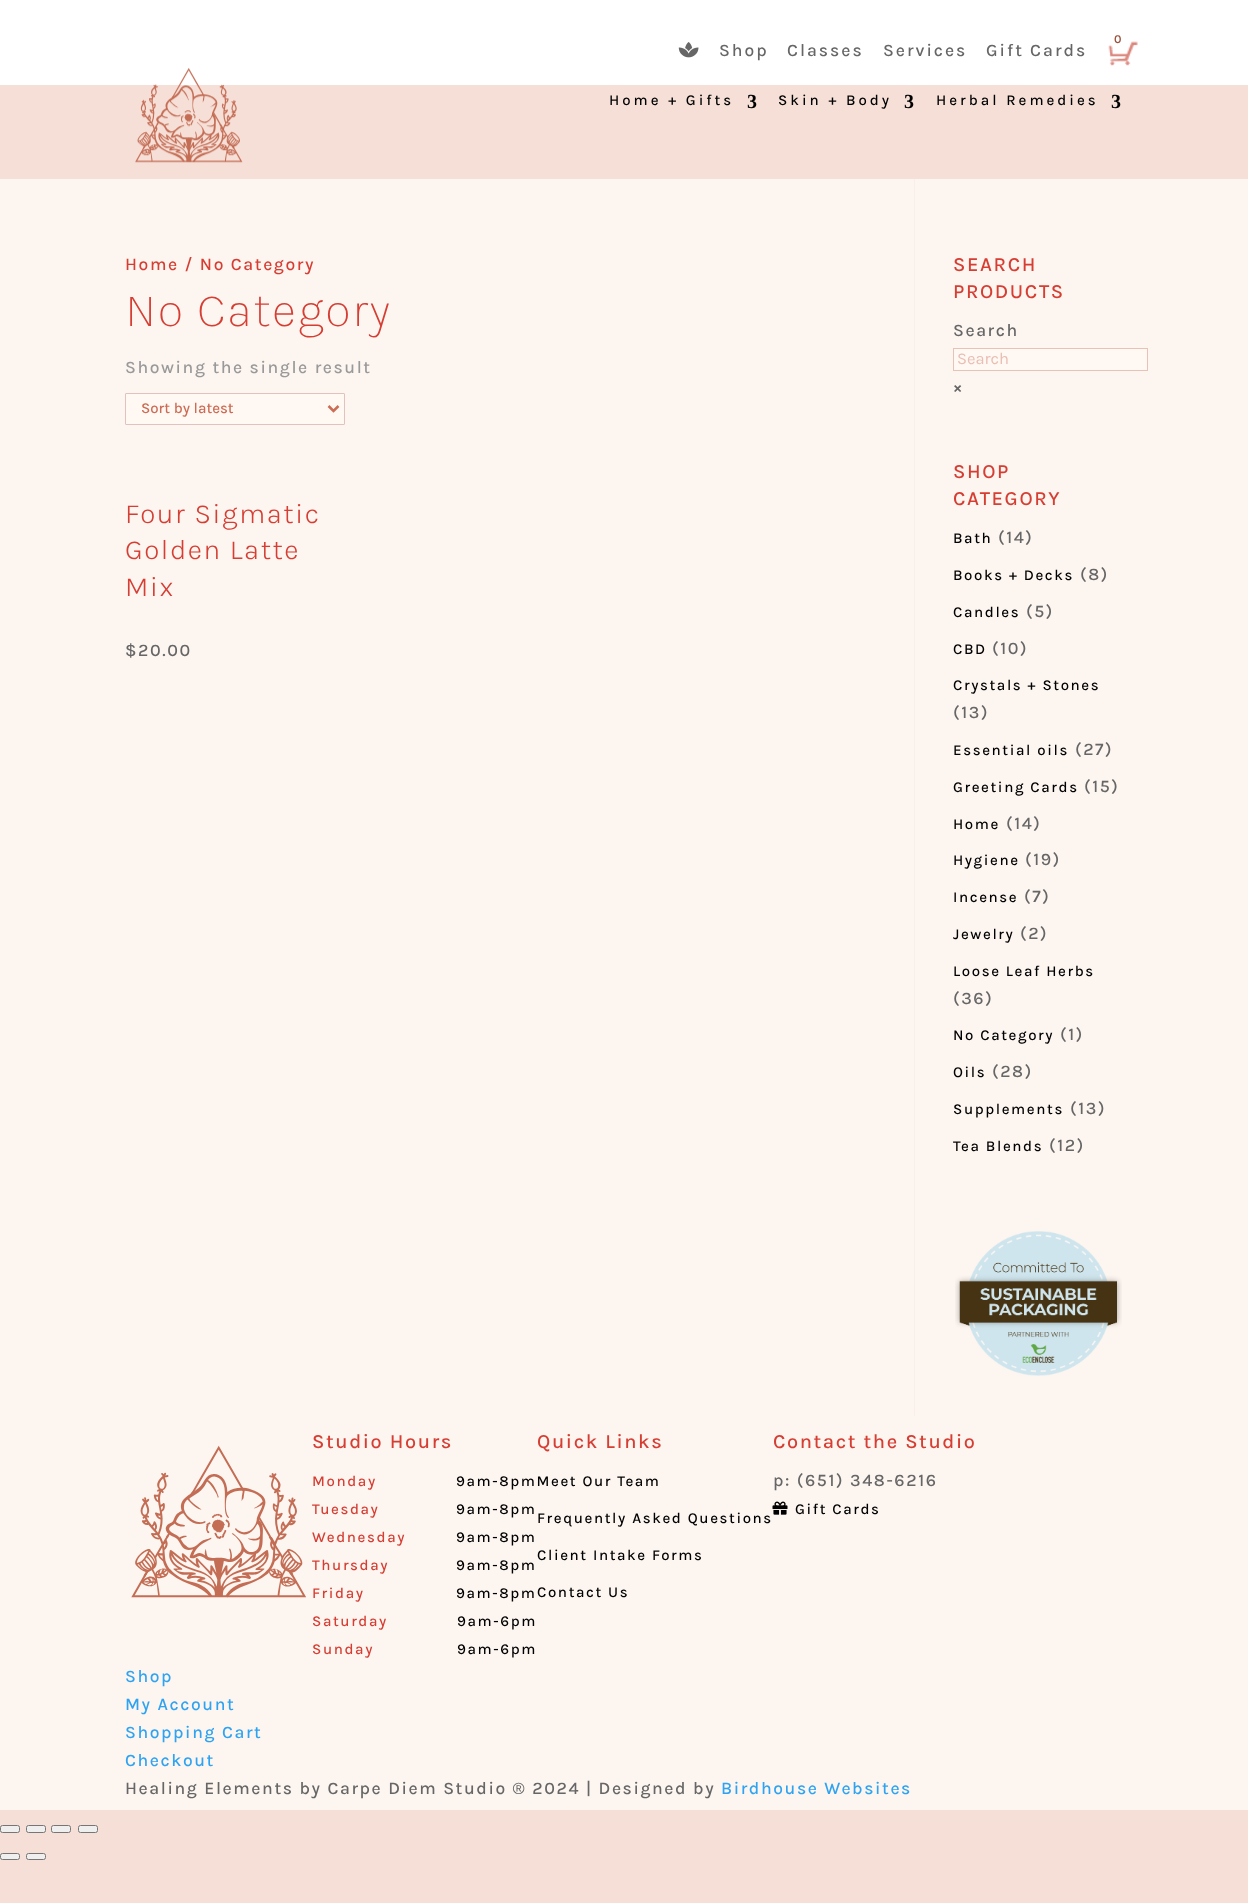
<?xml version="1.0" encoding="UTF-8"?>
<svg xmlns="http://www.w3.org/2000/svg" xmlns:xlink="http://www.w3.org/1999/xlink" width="1248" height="1903">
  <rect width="100%" height="100%" fill="#f5dfd7" />
  <rect width="1248" height="85" fill="#ffffff" />
  <image x="678" y="42" width="21" height="16" xlink:href="image2.png" />
  <image x="135" y="68" width="108" height="95" xlink:href="image3.png" />
  <rect y="179" width="1248" height="1631" fill="#fcf5f0" />
  <rect x="914" y="179" width="1" height="1237" fill="#faeee8" />
  <rect x="125.5" y="393.5" width="219" height="31" rx="0.5" fill="#fff8f3" stroke="#e2c2bf" />
  <path d="M 328.5 406 l 5 5 l 5 -5" fill="none" stroke="#cc6c55" stroke-width="2.5" />
  <rect x="953.5" y="348.5" width="194" height="22" fill="#fff8f3" stroke="#e7c3b7" />
  <image x="955" y="1231" width="167" height="145" xlink:href="image4.png" />
  <image x="131" y="1445" width="175" height="153" xlink:href="image5.png" />
  <image x="772" y="1501" width="16" height="14" xlink:href="image6.png" />
  <rect x="0.5" y="1825.5" width="19" height="7" rx="2" fill="#efefef" stroke="#767676" />
  <rect x="26.5" y="1825.5" width="19" height="7" rx="2" fill="#efefef" stroke="#767676" />
  <rect x="51.5" y="1825.5" width="19" height="7" rx="2" fill="#efefef" stroke="#767676" />
  <rect x="78.5" y="1825.5" width="19" height="7" rx="2" fill="#efefef" stroke="#767676" />
  <rect x="0.5" y="1853.5" width="19" height="6" rx="2" fill="#efefef" stroke="#767676" />
  <rect x="26.5" y="1853.5" width="19" height="6" rx="2" fill="#efefef" stroke="#767676" />
  <text x="1114" y="43" style="font-family: Karla; font-size: 12px; font-weight: 600; letter-spacing: 1.6px; fill: #9a4f3a">0</text>
  <image x="1108" y="41" width="30" height="25" xlink:href="image1.png" />
  <text x="719" y="56" style="font-family: Karla; font-size: 17.5px; font-weight: 500; letter-spacing: 2px; fill: #666666">Shop</text>
  <text x="787" y="56" style="font-family: Karla; font-size: 17.5px; font-weight: 500; letter-spacing: 2px; fill: #666666">Classes</text>
  <text x="883" y="56" style="font-family: Karla; font-size: 17.5px; font-weight: 500; letter-spacing: 2px; fill: #666666">Services</text>
  <text x="986" y="56" style="font-family: Karla; font-size: 17.5px; font-weight: 500; letter-spacing: 2px; fill: #666666">Gift Cards</text>
  <text x="609" y="105" style="font-family: Karla; font-size: 15px; font-weight: 500; letter-spacing: 3px; fill: #000000">Home + Gifts</text>
  <text x="747" y="108" style="font-family: Liberation Serif; font-size: 20px; font-weight: bold; letter-spacing: 3px; fill: #000000">3</text>
  <text x="778" y="105" style="font-family: Karla; font-size: 15px; font-weight: 500; letter-spacing: 3px; fill: #000000">Skin + Body</text>
  <text x="904" y="108" style="font-family: Liberation Serif; font-size: 20px; font-weight: bold; letter-spacing: 3px; fill: #000000">3</text>
  <text x="936" y="105" style="font-family: Karla; font-size: 15px; font-weight: 500; letter-spacing: 3px; fill: #000000">Herbal Remedies</text>
  <text x="1111" y="108" style="font-family: Liberation Serif; font-size: 20px; font-weight: bold; letter-spacing: 3px; fill: #000000">3</text>
  <text x="125" y="270" style="font-family: Karla; font-size: 17.5px; font-weight: 500; letter-spacing: 1.6px; fill: #d63e33">Home / No Category</text>
  <text x="125" y="326" style="font-family: Karla; font-size: 48px; font-weight: 200; letter-spacing: 1.6px; fill: #d63e33">No Category</text>
  <text x="125" y="373" style="font-family: Karla; font-size: 17.5px; font-weight: 500; letter-spacing: 1.6px; fill: #999999">Showing the single result</text>
  <text x="141" y="413" style="font-family: Karla; font-size: 15px; font-weight: 500; fill: #cc6c55">Sort by latest</text>
  <text x="125" y="523" style="font-family: Karla; font-size: 28px; font-weight: 300; letter-spacing: 1.6px; fill: #d63e33">Four Sigmatic</text>
  <text x="125" y="559" style="font-family: Karla; font-size: 28px; font-weight: 300; letter-spacing: 1.6px; fill: #d63e33">Golden Latte</text>
  <text x="125" y="596" style="font-family: Karla; font-size: 28px; font-weight: 300; letter-spacing: 1.6px; fill: #d63e33">Mix</text>
  <text x="125" y="656" style="font-family: Karla; font-size: 17.5px; font-weight: 500; letter-spacing: 1.6px; fill: #666666">$20.00</text>
  <text x="953" y="271" style="font-family: Karla; font-size: 20px; font-weight: 500; letter-spacing: 1.6px; fill: #d63e33">SEARCH</text>
  <text x="953" y="298" style="font-family: Karla; font-size: 20px; font-weight: 500; letter-spacing: 1.6px; fill: #d63e33">PRODUCTS</text>
  <text x="953" y="336" style="font-family: Karla; font-size: 17.5px; font-weight: 500; letter-spacing: 1.6px; fill: #666666">Search</text>
  <text x="957" y="364" style="font-family: Karla; font-size: 16.5px; fill: #e9beb3">Search</text>
  <text x="953" y="393" style="font-family: Karla; font-size: 17.5px; font-weight: 500; letter-spacing: 1.6px; fill: #666666">×</text>
  <text x="953" y="478" style="font-family: Karla; font-size: 20px; font-weight: 500; letter-spacing: 1.6px; fill: #d63e33">SHOP</text>
  <text x="953" y="505" style="font-family: Karla; font-size: 20px; font-weight: 500; letter-spacing: 1.6px; fill: #d63e33">CATEGORY</text>
  <text x="953" y="543" style="font-family: Karla; font-size: 15px; font-weight: 500; letter-spacing: 1.6px; fill: #000000">Bath</text>
  <text x="998" y="543" style="font-family: Karla; font-size: 17.5px; font-weight: 500; letter-spacing: 1.6px; fill: #666666">(14)</text>
  <text x="953" y="580" style="font-family: Karla; font-size: 15px; font-weight: 500; letter-spacing: 1.6px; fill: #000000">Books + Decks</text>
  <text x="1080" y="580" style="font-family: Karla; font-size: 17.5px; font-weight: 500; letter-spacing: 1.6px; fill: #666666">(8)</text>
  <text x="953" y="617" style="font-family: Karla; font-size: 15px; font-weight: 500; letter-spacing: 1.6px; fill: #000000">Candles</text>
  <text x="1026" y="617" style="font-family: Karla; font-size: 17.5px; font-weight: 500; letter-spacing: 1.6px; fill: #666666">(5)</text>
  <text x="953" y="654" style="font-family: Karla; font-size: 15px; font-weight: 500; letter-spacing: 1.6px; fill: #000000">CBD</text>
  <text x="992" y="654" style="font-family: Karla; font-size: 17.5px; font-weight: 500; letter-spacing: 1.6px; fill: #666666">(10)</text>
  <text x="953" y="690" style="font-family: Karla; font-size: 15px; font-weight: 500; letter-spacing: 1.6px; fill: #000000">Crystals + Stones</text>
  <text x="953" y="718" style="font-family: Karla; font-size: 17.5px; font-weight: 500; letter-spacing: 1.6px; fill: #666666">(13)</text>
  <text x="953" y="755" style="font-family: Karla; font-size: 15px; font-weight: 500; letter-spacing: 1.6px; fill: #000000">Essential oils</text>
  <text x="1075" y="755" style="font-family: Karla; font-size: 17.5px; font-weight: 500; letter-spacing: 1.6px; fill: #666666">(27)</text>
  <text x="953" y="792" style="font-family: Karla; font-size: 15px; font-weight: 500; letter-spacing: 1.6px; fill: #000000">Greeting Cards</text>
  <text x="1084" y="792" style="font-family: Karla; font-size: 17.5px; font-weight: 500; letter-spacing: 1.6px; fill: #666666">(15)</text>
  <text x="953" y="829" style="font-family: Karla; font-size: 15px; font-weight: 500; letter-spacing: 1.6px; fill: #000000">Home</text>
  <text x="1006" y="829" style="font-family: Karla; font-size: 17.5px; font-weight: 500; letter-spacing: 1.6px; fill: #666666">(14)</text>
  <text x="953" y="865" style="font-family: Karla; font-size: 15px; font-weight: 500; letter-spacing: 1.6px; fill: #000000">Hygiene</text>
  <text x="1025" y="865" style="font-family: Karla; font-size: 17.5px; font-weight: 500; letter-spacing: 1.6px; fill: #666666">(19)</text>
  <text x="953" y="902" style="font-family: Karla; font-size: 15px; font-weight: 500; letter-spacing: 1.6px; fill: #000000">Incense</text>
  <text x="1024" y="902" style="font-family: Karla; font-size: 17.5px; font-weight: 500; letter-spacing: 1.6px; fill: #666666">(7)</text>
  <text x="953" y="939" style="font-family: Karla; font-size: 15px; font-weight: 500; letter-spacing: 1.6px; fill: #000000">Jewelry</text>
  <text x="1020" y="939" style="font-family: Karla; font-size: 17.5px; font-weight: 500; letter-spacing: 1.6px; fill: #666666">(2)</text>
  <text x="953" y="976" style="font-family: Karla; font-size: 15px; font-weight: 500; letter-spacing: 1.6px; fill: #000000">Loose Leaf Herbs</text>
  <text x="953" y="1004" style="font-family: Karla; font-size: 17.5px; font-weight: 500; letter-spacing: 1.6px; fill: #666666">(36)</text>
  <text x="953" y="1040" style="font-family: Karla; font-size: 15px; font-weight: 500; letter-spacing: 1.6px; fill: #000000">No Category</text>
  <text x="1060" y="1040" style="font-family: Karla; font-size: 17.5px; font-weight: 500; letter-spacing: 1.6px; fill: #666666">(1)</text>
  <text x="953" y="1077" style="font-family: Karla; font-size: 15px; font-weight: 500; letter-spacing: 1.6px; fill: #000000">Oils</text>
  <text x="992" y="1077" style="font-family: Karla; font-size: 17.5px; font-weight: 500; letter-spacing: 1.6px; fill: #666666">(28)</text>
  <text x="953" y="1114" style="font-family: Karla; font-size: 15px; font-weight: 500; letter-spacing: 1.6px; fill: #000000">Supplements</text>
  <text x="1070" y="1114" style="font-family: Karla; font-size: 17.5px; font-weight: 500; letter-spacing: 1.6px; fill: #666666">(13)</text>
  <text x="953" y="1151" style="font-family: Karla; font-size: 15px; font-weight: 500; letter-spacing: 1.6px; fill: #000000">Tea Blends</text>
  <text x="1049" y="1151" style="font-family: Karla; font-size: 17.5px; font-weight: 500; letter-spacing: 1.6px; fill: #666666">(12)</text>
  <text x="312" y="1448" style="font-family: Karla; font-size: 20px; font-weight: 500; letter-spacing: 1.6px; fill: #d63e33">Studio Hours</text>
  <text x="312" y="1486" style="font-family: Karla; font-size: 15px; font-weight: 500; letter-spacing: 1.6px; fill: #d63e33">Monday</text>
  <text x="456" y="1486" style="font-family: Karla; font-size: 15px; font-weight: 500; letter-spacing: 1.6px; fill: #000000">9am-8pmMeet Our Team</text>
  <text x="312" y="1514" style="font-family: Karla; font-size: 15px; font-weight: 500; letter-spacing: 1.6px; fill: #d63e33">Tuesday</text>
  <text x="456" y="1514" style="font-family: Karla; font-size: 15px; font-weight: 500; letter-spacing: 1.6px; fill: #000000">9am-8pm</text>
  <text x="312" y="1542" style="font-family: Karla; font-size: 15px; font-weight: 500; letter-spacing: 1.6px; fill: #d63e33">Wednesday</text>
  <text x="456" y="1542" style="font-family: Karla; font-size: 15px; font-weight: 500; letter-spacing: 1.6px; fill: #000000">9am-8pm</text>
  <text x="312" y="1570" style="font-family: Karla; font-size: 15px; font-weight: 500; letter-spacing: 1.6px; fill: #d63e33">Thursday</text>
  <text x="456" y="1570" style="font-family: Karla; font-size: 15px; font-weight: 500; letter-spacing: 1.6px; fill: #000000">9am-8pm</text>
  <text x="312" y="1598" style="font-family: Karla; font-size: 15px; font-weight: 500; letter-spacing: 1.6px; fill: #d63e33">Friday</text>
  <text x="456" y="1598" style="font-family: Karla; font-size: 15px; font-weight: 500; letter-spacing: 1.6px; fill: #000000">9am-8pm</text>
  <text x="312" y="1626" style="font-family: Karla; font-size: 15px; font-weight: 500; letter-spacing: 1.6px; fill: #d63e33">Saturday</text>
  <text x="457" y="1626" style="font-family: Karla; font-size: 15px; font-weight: 500; letter-spacing: 1.6px; fill: #000000">9am-6pm</text>
  <text x="312" y="1654" style="font-family: Karla; font-size: 15px; font-weight: 500; letter-spacing: 1.6px; fill: #d63e33">Sunday</text>
  <text x="457" y="1654" style="font-family: Karla; font-size: 15px; font-weight: 500; letter-spacing: 1.6px; fill: #000000">9am-6pm</text>
  <text x="537" y="1448" style="font-family: Karla; font-size: 20px; font-weight: 500; letter-spacing: 1.6px; fill: #d63e33">Quick Links</text>
  <text x="537" y="1523" style="font-family: Karla; font-size: 15px; font-weight: 500; letter-spacing: 1.6px; fill: #000000">Frequently Asked Questions</text>
  <text x="537" y="1560" style="font-family: Karla; font-size: 15px; font-weight: 500; letter-spacing: 1.6px; fill: #000000">Client Intake Forms</text>
  <text x="537" y="1597" style="font-family: Karla; font-size: 15px; font-weight: 500; letter-spacing: 1.6px; fill: #000000">Contact Us</text>
  <text x="773" y="1448" style="font-family: Karla; font-size: 20px; font-weight: 500; letter-spacing: 1.6px; fill: #d63e33">Contact the Studio</text>
  <text x="773" y="1486" style="font-family: Karla; font-size: 17.5px; font-weight: 500; letter-spacing: 1.6px; fill: #666666">p: (651) 348-6216</text>
  <text x="795" y="1514" style="font-family: Karla; font-size: 15px; font-weight: 500; letter-spacing: 1.6px; fill: #000000">Gift Cards</text>
  <text x="125" y="1682" style="font-family: Karla; font-size: 17.5px; font-weight: 500; letter-spacing: 1.6px; fill: #2ea3f2">Shop</text>
  <text x="125" y="1710" style="font-family: Karla; font-size: 17.5px; font-weight: 500; letter-spacing: 1.6px; fill: #2ea3f2">My Account</text>
  <text x="125" y="1738" style="font-family: Karla; font-size: 17.5px; font-weight: 500; letter-spacing: 1.6px; fill: #2ea3f2">Shopping Cart</text>
  <text x="125" y="1766" style="font-family: Karla; font-size: 17.5px; font-weight: 500; letter-spacing: 1.6px; fill: #2ea3f2">Checkout</text>
  <text x="125" y="1794" style="font-family: Karla; font-size: 17.5px; font-weight: 500; letter-spacing: 1.6px; fill: #666666">Healing Elements by Carpe Diem Studio ® 2024 | Designed by</text>
  <text x="721" y="1794" style="font-family: Karla; font-size: 17.5px; font-weight: 500; letter-spacing: 1.6px; fill: #2ea3f2">Birdhouse Websites</text>
</svg>
